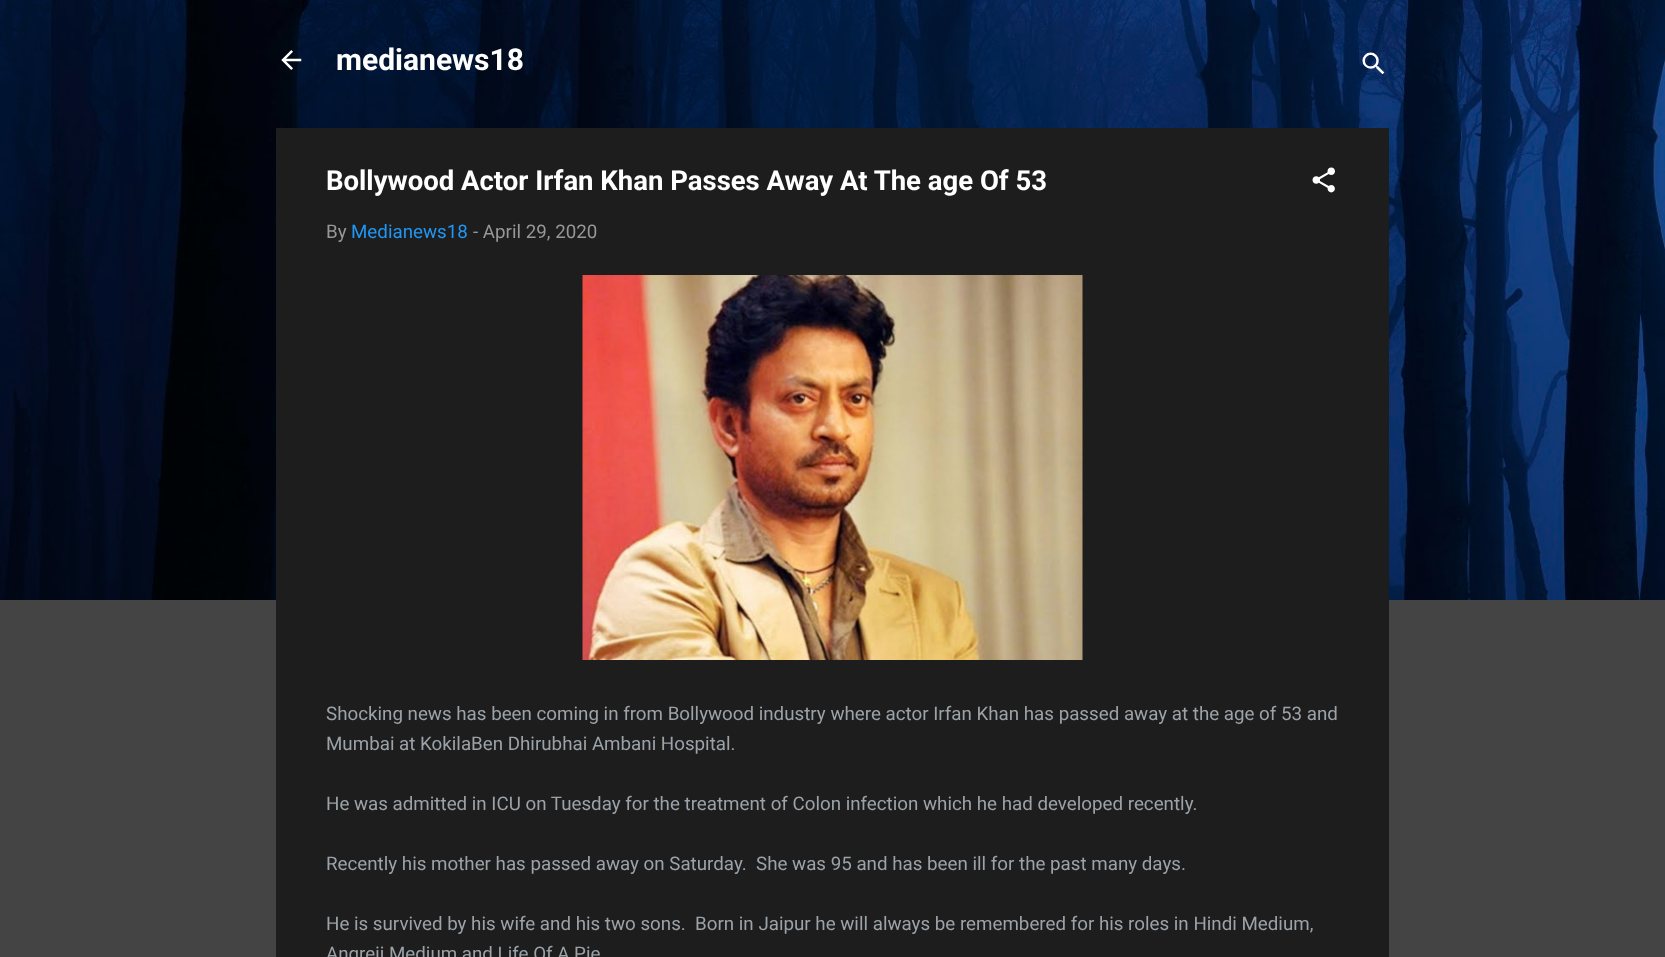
<?xml version="1.0" encoding="UTF-8"?>
<svg xmlns="http://www.w3.org/2000/svg" xmlns:xlink="http://www.w3.org/1999/xlink" width="1665" height="957">
  <rect width="100%" height="100%" fill="#444444" />
  <image x="0" y="0" width="1665" height="600" xlink:href="image1.png" />
  <image x="281" y="50" width="21" height="20" xlink:href="image2.png" />
  <image x="1362" y="52" width="23" height="23" xlink:href="image3.png" />
  <rect x="276" y="128" width="1113" height="829" fill="#1d1d1d" />
  <image x="1312" y="167" width="23" height="26" xlink:href="image4.png" />
  <image x="582" y="275" width="501" height="385" xlink:href="image5.png" />
  <text x="336" y="70" style="font-family: Roboto; font-size: 30px; font-weight: bold; fill: #ffffff">medianews18</text>
  <text x="326" y="190" style="font-family: Roboto; font-size: 27.5px; font-weight: bold; fill: #ffffff">Bollywood Actor Irfan Khan Passes Away At The age Of 53</text>
  <text x="326" y="238" style="font-family: Roboto; font-size: 18.75px; fill: #979797">By</text>
  <text x="351" y="238" style="font-family: Roboto; font-size: 18.75px; fill: #2196f3">Medianews18</text>
  <text x="473" y="238" style="font-family: Roboto; font-size: 18.75px; fill: #979797">- April 29, 2020</text>
  <text x="326" y="720" style="font-family: Roboto; font-size: 18.75px; fill: #9ba2a8">Shocking news has been coming in from Bollywood industry where actor Irfan Khan has passed away at the age of 53 and</text>
  <text x="326" y="750" style="font-family: Roboto; font-size: 18.75px; fill: #9ba2a8">Mumbai at KokilaBen Dhirubhai Ambani Hospital.</text>
  <text x="326" y="810" style="font-family: Roboto; font-size: 18.75px; fill: #9ba2a8">He was admitted in ICU on Tuesday for the treatment of Colon infection which he had developed recently.</text>
  <text x="326" y="870" style="font-family: Roboto; font-size: 18.75px; fill: #9ba2a8" xml:space="preserve">Recently his mother has passed away on Saturday.  She was 95 and has been ill for the past many days.</text>
  <text x="326" y="930" style="font-family: Roboto; font-size: 18.75px; fill: #9ba2a8" xml:space="preserve">He is survived by his wife and his two sons.  Born in Jaipur he will always be remembered for his roles in Hindi Medium,</text>
  <text x="326" y="960" style="font-family: Roboto; font-size: 18.75px; fill: #9ba2a8">Angreji Medium and Life Of A Pie</text>
</svg>
